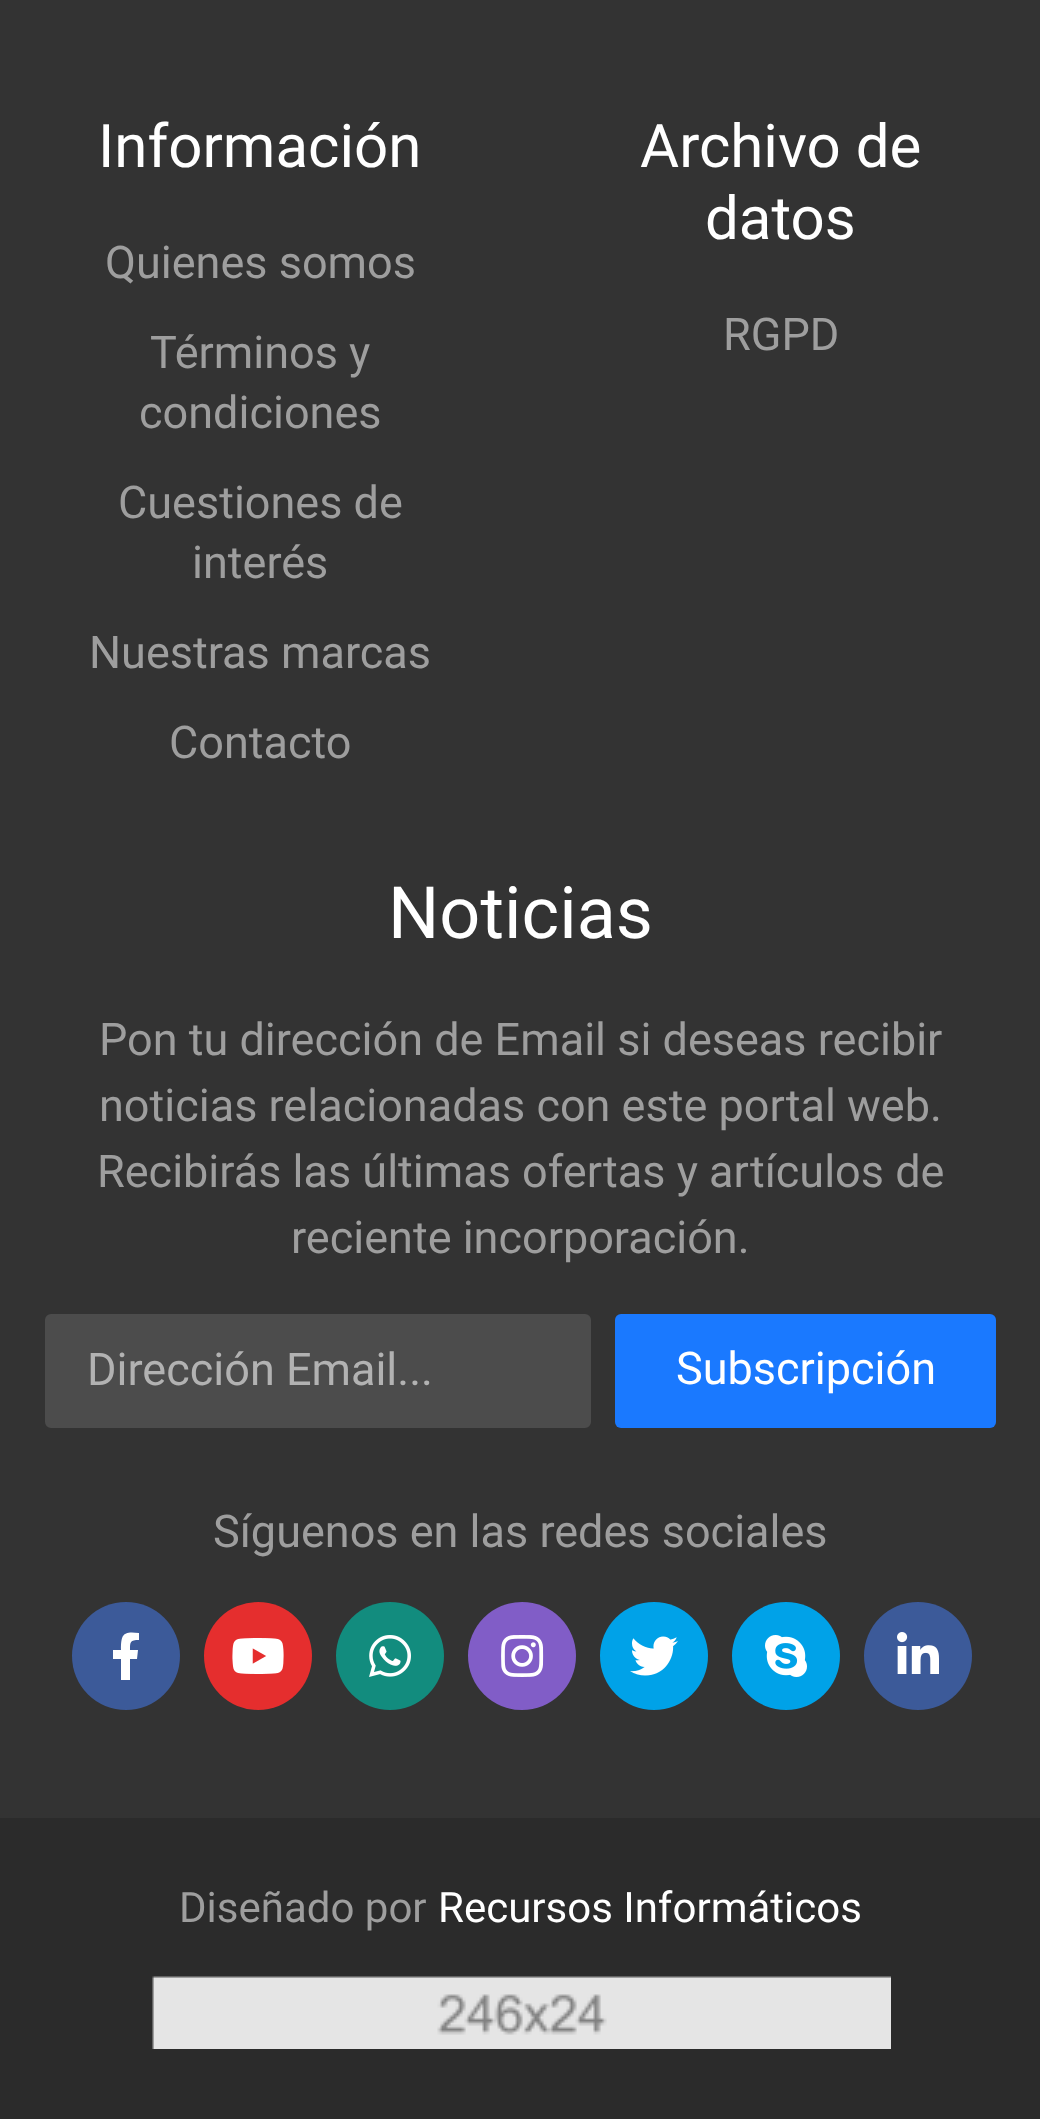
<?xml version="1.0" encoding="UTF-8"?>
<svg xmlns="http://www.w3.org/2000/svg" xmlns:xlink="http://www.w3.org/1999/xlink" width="1040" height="2119">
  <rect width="100%" height="100%" fill="#333333" />
  <rect x="48" y="1317" width="540" height="108" rx="3" fill="#4c4c4c" stroke="#4c4c4c" stroke-width="6" />
  <rect x="615" y="1314" width="381" height="114" rx="6" fill="#1a79ff" />
  <circle cx="126" cy="1656" r="54" fill="#3c5a99" />
  <path d="M 137 1659 h -7 v 21 h -9 v -21 h -8 v -9 h 8 c 0 -16 2 -19 18 -17 v 7 c -9 0 -9 2 -9 10 h 8 z" fill="#ffffff" />
  <circle cx="258" cy="1656" r="54" fill="#e52e2e" />
  <image x="232" y="1638" width="52" height="36" xlink:href="image1.png" />
  <circle cx="390" cy="1656" r="54" fill="#128c7e" />
  <image x="369" y="1635" width="42" height="42" xlink:href="image2.png" />
  <circle cx="522" cy="1656" r="54" fill="#815dc7" />
  <image x="501" y="1635" width="43" height="42" xlink:href="image3.png" />
  <circle cx="654" cy="1656" r="54" fill="#00a2e8" />
  <image x="630" y="1636" width="48" height="40" xlink:href="image4.png" />
  <circle cx="786" cy="1656" r="54" fill="#00a2e8" />
  <image x="765" y="1635" width="42" height="42" xlink:href="image5.png" />
  <circle cx="918" cy="1656" r="54" fill="#3c5a99" />
  <image x="897" y="1632" width="42" height="42" xlink:href="image6.png" />
  <rect y="1818" width="1040" height="301" fill="#2b2b2b" />
  <image x="152" y="1976" width="739" height="73" xlink:href="image7.png" />
  <text x="98" y="167" style="font-family: Roboto; font-size: 60px; fill: #ffffff">Información</text>
  <text x="105" y="278" style="font-family: Roboto; font-size: 45px; fill: #9e9e9e">Quienes somos</text>
  <text x="150" y="368" style="font-family: Roboto; font-size: 45px; fill: #9e9e9e">Términos y</text>
  <text x="139" y="428" style="font-family: Roboto; font-size: 45px; fill: #9e9e9e">condiciones</text>
  <text x="118" y="518" style="font-family: Roboto; font-size: 45px; fill: #9e9e9e">Cuestiones de</text>
  <text x="192" y="578" style="font-family: Roboto; font-size: 45px; fill: #9e9e9e">interés</text>
  <text x="89" y="668" style="font-family: Roboto; font-size: 45px; fill: #9e9e9e">Nuestras marcas</text>
  <text x="169" y="758" style="font-family: Roboto; font-size: 45px; fill: #9e9e9e">Contacto</text>
  <text x="640" y="167" style="font-family: Roboto; font-size: 60px; fill: #ffffff">Archivo de</text>
  <text x="705" y="239" style="font-family: Roboto; font-size: 60px; fill: #ffffff">datos</text>
  <text x="723" y="350" style="font-family: Roboto; font-size: 45px; fill: #9e9e9e">RGPD</text>
  <text x="388" y="938" style="font-family: Roboto; font-size: 72px; fill: #ffffff">Noticias</text>
  <text x="99" y="1055" style="font-family: Roboto; font-size: 45px; fill: #9e9e9e">Pon tu dirección de Email si deseas recibir</text>
  <text x="99" y="1121" style="font-family: Roboto; font-size: 45px; fill: #9e9e9e">noticias relacionadas con este portal web.</text>
  <text x="97" y="1187" style="font-family: Roboto; font-size: 45px; fill: #9e9e9e">Recibirás las últimas ofertas y artículos de</text>
  <text x="291" y="1253" style="font-family: Roboto; font-size: 45px; fill: #9e9e9e">reciente incorporación.</text>
  <text x="87" y="1385" style="font-family: Roboto; font-size: 45px; fill: #b2b2b2">Dirección Email...</text>
  <text x="676" y="1384" style="font-family: Roboto; font-size: 45px; fill: #ffffff">Subscripción</text>
  <text x="213" y="1547" style="font-family: Roboto; font-size: 45px; fill: #9e9e9e">Síguenos en las redes sociales</text>
  <text x="179" y="1922" style="font-family: Roboto; font-size: 42px; fill: #9e9e9e">Diseñado por</text>
  <text x="438" y="1922" style="font-family: Roboto; font-size: 42px; fill: #ffffff">Recursos Informáticos</text>
</svg>
